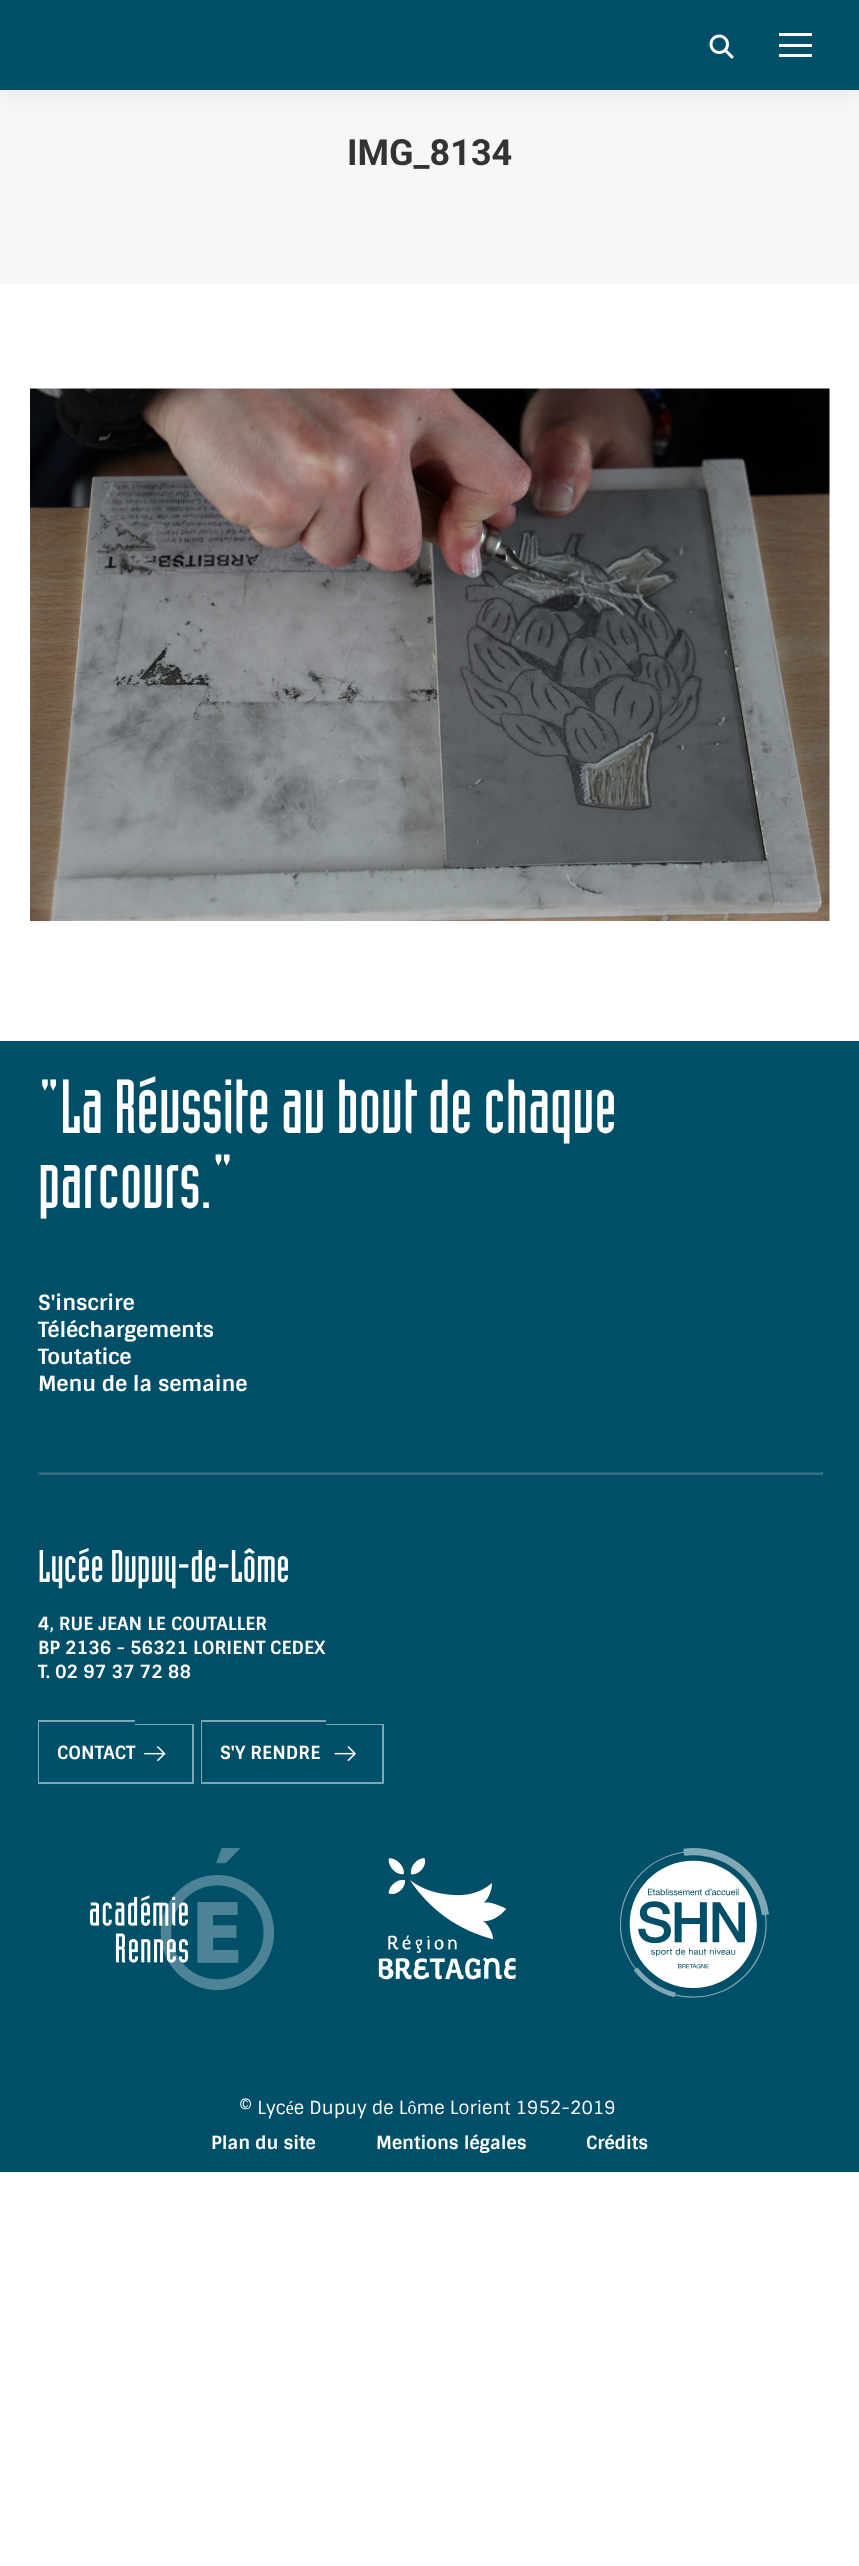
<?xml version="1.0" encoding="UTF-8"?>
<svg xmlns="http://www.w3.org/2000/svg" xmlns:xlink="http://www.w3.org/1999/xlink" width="859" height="2566">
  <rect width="100%" height="100%" fill="#ffffff" />
  <rect y="90" width="859" height="194" fill="#f7f7f7" />
  <rect x="-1" y="-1" width="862" height="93" fill="#000000" fill-opacity="0.07" filter="blur(11px)" />
  <rect width="859" height="90" fill="#004f68" />
  <image x="709" y="34" width="25" height="25" xlink:href="image1.png" />
  <rect x="779" y="33" width="33" height="3" fill="#ffffff" />
  <rect x="779" y="44" width="33" height="3" fill="#ffffff" />
  <rect x="779" y="54" width="33" height="3" fill="#ffffff" />
  <image x="30" y="388" width="800" height="533" xlink:href="image2.png" />
  <rect y="1041" width="859" height="1131" fill="#004f68" />
  <rect x="38" y="1472" width="784" height="1" fill="#205f73" />
  <rect x="821" y="1472" width="2" height="3" fill="#306f83" />
  <rect x="38" y="1473" width="784" height="2" fill="#306f83" />
  <rect x="38" y="1472" width="2" height="3" fill="#205f73" />
  <path d="M 38 1720 h 97 v 2 h -96 z" fill="#80a7b4" />
  <path d="M 135 1784 h -97 l 1 -2 h 96 z" fill="#80a7b4" />
  <path d="M 38 1784 v -64 l 1 2 v 60 z" fill="#ffffff" fill-opacity="0.5" />
  <path d="M 135 1724 h 59 l -2 1 h -57 z" fill="#80a7b4" />
  <path d="M 194 1724 v 60 l -2 -2 v -57 z" fill="#ffffff" fill-opacity="0.5" />
  <path d="M 194 1784 h -59 v -2 h 57 z" fill="#ffffff" fill-opacity="0.5" />
  <image x="144" y="1746" width="22" height="16" xlink:href="image3.png" />
  <path d="M 201 1720 h 125 v 2 h -124 z" fill="#80a7b4" />
  <path d="M 326 1784 h -125 l 1 -2 h 124 z" fill="#80a7b4" />
  <path d="M 201 1784 v -64 l 1 2 v 60 z" fill="#ffffff" fill-opacity="0.5" />
  <path d="M 326 1724 h 58 l -2 1 h -56 z" fill="#80a7b4" />
  <path d="M 384 1724 v 60 l -2 -2 v -57 z" fill="#ffffff" fill-opacity="0.5" />
  <path d="M 384 1784 h -58 v -2 h 56 z" fill="#ffffff" fill-opacity="0.5" />
  <image x="334" y="1746" width="22" height="16" xlink:href="image4.png" />
  <image x="90" y="1848" width="185" height="143" xlink:href="image5.png" />
  <image x="378" y="1858" width="138" height="122" xlink:href="image6.png" />
  <image x="620" y="1848" width="149" height="150" xlink:href="image7.png" />
  <text x="347" y="165" style="font-family: Roboto; font-size: 36px; font-weight: bold; fill: #333333">IMG_8134</text>
  <text x="38" y="1133" style="font-family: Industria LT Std; font-size: 75px; fill: #ffffff">"La Réussite au bout de chaque</text>
  <text x="38" y="1208" style="font-family: Industria LT Std; font-size: 75px; fill: #ffffff">parcours."</text>
  <text x="38" y="1310" style="font-family: Sintony; font-size: 21px; font-weight: bold; fill: #ffffff">S'inscrire</text>
  <text x="38" y="1337" style="font-family: Sintony; font-size: 21px; font-weight: bold; fill: #ffffff">Téléchargements</text>
  <text x="38" y="1364" style="font-family: Sintony; font-size: 21px; font-weight: bold; fill: #ffffff">Toutatice</text>
  <text x="38" y="1391" style="font-family: Sintony; font-size: 21px; font-weight: bold; fill: #ffffff">Menu de la semaine</text>
  <text x="38" y="1582" style="font-family: Industria LT Std; font-size: 45px; fill: #ffffff">Lycée Dupuy-de-Lôme</text>
  <text x="38" y="1630" style="font-family: Sintony; font-size: 18px; font-weight: bold; fill: #ffffff">4, RUE JEAN LE COUTALLER</text>
  <text x="38" y="1654" style="font-family: Sintony; font-size: 18px; font-weight: bold; fill: #ffffff">BP 2136 - 56321 LORIENT CEDEX</text>
  <text x="38" y="1678" style="font-family: Sintony; font-size: 18px; font-weight: bold; fill: #ffffff">T. 02 97 37 72 88</text>
  <text x="57" y="1759" style="font-family: Sintony; font-size: 18px; font-weight: bold; fill: #ffffff">CONTACT</text>
  <text x="220" y="1759" style="font-family: Sintony; font-size: 18px; font-weight: bold; fill: #ffffff">S'Y RENDRE</text>
  <text x="239" y="2114" style="font-family: Sintony; font-size: 18px; fill: #ffffff">© Lycée Dupuy de Lôme Lorient 1952-2019</text>
  <text x="211" y="2149" style="font-family: Sintony; font-size: 18px; font-weight: bold; fill: #ffffff">Plan du site</text>
  <text x="376" y="2149" style="font-family: Sintony; font-size: 18px; font-weight: bold; fill: #ffffff">Mentions légales</text>
  <text x="586" y="2149" style="font-family: Sintony; font-size: 18px; font-weight: bold; fill: #ffffff">Crédits</text>
</svg>
